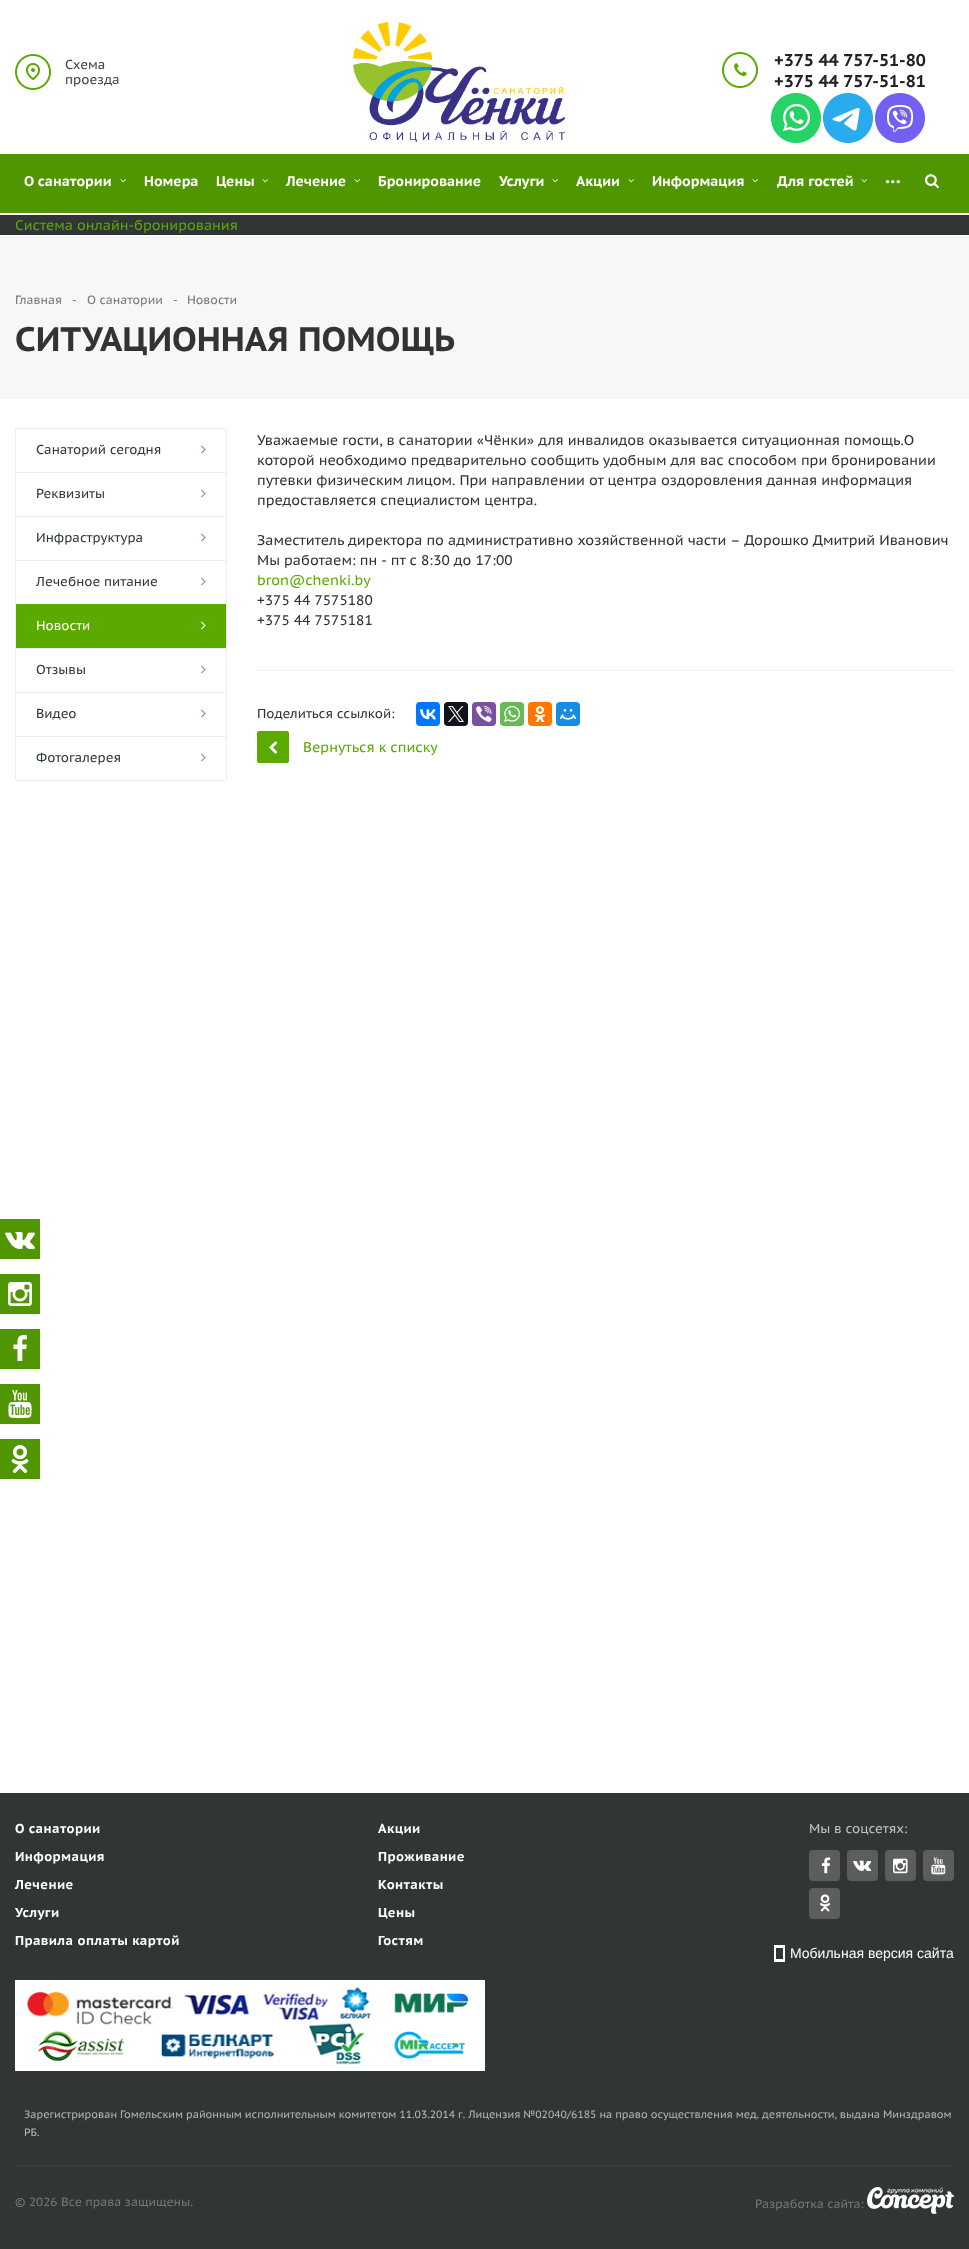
<?xml version="1.0" encoding="UTF-8"?>
<svg xmlns="http://www.w3.org/2000/svg" xmlns:xlink="http://www.w3.org/1999/xlink" width="969" height="2249">
  <rect width="100%" height="100%" fill="#ffffff" />
  <rect x="15" y="54" width="36" height="36" fill="#5baa00" />
  <image x="15" y="54" width="36" height="36" xlink:href="image1.png" />
  <image x="353" y="22" width="212" height="120" xlink:href="image2.png" />
  <rect x="722" y="52" width="36" height="36" fill="#5baa00" />
  <image x="722" y="52" width="36" height="36" xlink:href="image3.png" />
  <image x="771" y="93" width="50" height="50" xlink:href="image4.png" />
  <image x="823" y="93" width="50" height="50" xlink:href="image5.png" />
  <image x="875" y="93" width="50" height="50" xlink:href="image6.png" />
  <rect y="154" width="969" height="59" fill="#509600" />
  <image x="120" y="179" width="6" height="4" xlink:href="image7.png" />
  <image x="262" y="179" width="6" height="4" xlink:href="image7.png" />
  <image x="354" y="179" width="6" height="4" xlink:href="image7.png" />
  <image x="552" y="179" width="6" height="4" xlink:href="image7.png" />
  <image x="628" y="179" width="6" height="4" xlink:href="image7.png" />
  <image x="752" y="179" width="6" height="4" xlink:href="image7.png" />
  <image x="861" y="179" width="6" height="4" xlink:href="image7.png" />
  <image x="925" y="174" width="14" height="15" xlink:href="image8.png" />
  <rect y="215" width="969" height="20" fill="#323536" />
  <rect y="238" width="969" height="159" fill="#f7f7f8" />
  <rect y="237" width="969" height="1" fill="#ebeef1" />
  <rect y="397" width="969" height="1" fill="#ebeef1" />
  <rect x="15.5" y="428.5" width="211" height="352" rx="1.5" fill="none" stroke="#ebeef1" />
  <image x="201" y="445" width="5" height="9" xlink:href="image9.png" />
  <rect x="16" y="472" width="210" height="1" fill="#ebeef1" />
  <image x="201" y="489" width="5" height="9" xlink:href="image9.png" />
  <rect x="16" y="516" width="210" height="1" fill="#ebeef1" />
  <image x="201" y="533" width="5" height="9" xlink:href="image9.png" />
  <rect x="16" y="560" width="210" height="1" fill="#ebeef1" />
  <image x="201" y="577" width="5" height="9" xlink:href="image9.png" />
  <rect x="16" y="604" width="210" height="44" fill="#5baa00" />
  <image x="201" y="621" width="5" height="9" xlink:href="image10.png" />
  <rect x="16" y="648" width="210" height="1" fill="#ebeef1" />
  <image x="201" y="665" width="5" height="9" xlink:href="image9.png" />
  <rect x="16" y="692" width="210" height="1" fill="#ebeef1" />
  <image x="201" y="709" width="5" height="9" xlink:href="image9.png" />
  <rect x="16" y="736" width="210" height="1" fill="#ebeef1" />
  <image x="201" y="753" width="5" height="9" xlink:href="image9.png" />
  <rect x="257" y="670" width="697" height="1" fill="#efefef" />
  <rect x="416" y="702" width="24" height="24" rx="4" fill="#0077ff" />
  <image x="420" y="709" width="16" height="11" xlink:href="image11.png" />
  <rect x="444" y="702" width="24" height="24" rx="4" fill="#0f1419" />
  <image x="448" y="706" width="16" height="16" xlink:href="image12.png" />
  <rect x="472" y="702" width="24" height="24" rx="4" fill="#7b519d" />
  <image x="476" y="706" width="16" height="16" xlink:href="image13.png" />
  <rect x="500" y="702" width="24" height="24" rx="4" fill="#65bc54" />
  <image x="504" y="706" width="16" height="16" xlink:href="image14.png" />
  <rect x="528" y="702" width="24" height="24" rx="4" fill="#ff7700" />
  <image x="534" y="706" width="12" height="16" xlink:href="image15.png" />
  <rect x="556" y="702" width="24" height="24" rx="4" fill="#168de2" />
  <image x="560" y="709" width="16" height="11" xlink:href="image16.png" />
  <rect x="257" y="731" width="32" height="32" rx="2" fill="#5baa00" />
  <image x="269" y="741" width="9" height="13" xlink:href="image17.png" />
  <rect y="1219" width="40" height="40" fill="#509600" />
  <image x="5" y="1231" width="30" height="18" xlink:href="image18.png" />
  <rect y="1274" width="40" height="40" fill="#509600" />
  <image x="8" y="1282" width="24" height="24" xlink:href="image19.png" />
  <rect y="1329" width="40" height="40" fill="#509600" />
  <image x="13" y="1335" width="14" height="26" xlink:href="image20.png" />
  <rect y="1384" width="40" height="40" fill="#509600" />
  <image x="8" y="1390" width="24" height="28" xlink:href="image21.png" />
  <rect y="1439" width="40" height="40" fill="#509600" />
  <image x="11" y="1445" width="18" height="28" xlink:href="image22.png" />
  <rect y="1793" width="969" height="456" fill="#323536" />
  <image x="15" y="1980" width="470" height="91" xlink:href="image23.png" />
  <rect x="809" y="1850" width="31" height="31" rx="4" fill="#5b5d5e" />
  <image x="821" y="1857" width="10" height="17" xlink:href="image24.png" />
  <rect x="847" y="1850" width="31" height="31" rx="4" fill="#5b5d5e" />
  <image x="853" y="1860" width="19" height="11" xlink:href="image25.png" />
  <rect x="885" y="1850" width="31" height="31" rx="4" fill="#5b5d5e" />
  <image x="893" y="1858" width="15" height="16" xlink:href="image26.png" />
  <rect x="923" y="1850" width="31" height="31" rx="4" fill="#5b5d5e" />
  <image x="931" y="1857" width="15" height="18" xlink:href="image27.png" />
  <rect x="809" y="1888" width="31" height="31" rx="4" fill="#5b5d5e" />
  <image x="820" y="1894" width="11" height="18" xlink:href="image28.png" />
  <image x="774" y="1945" width="11" height="17" xlink:href="image29.png" />
  <rect x="15" y="2165" width="939" height="1" fill="#3c3f40" />
  <image x="867" y="2187" width="87" height="27" xlink:href="image30.png" />
  <text x="65" y="69" style="font-family: PT Sans Caption; font-size: 13px; fill: #444444">Схема</text>
  <text x="65" y="84" style="font-family: PT Sans Caption; font-size: 13px; fill: #444444">проезда</text>
  <text x="774" y="66" style="font-family: PT Sans Caption; font-size: 17px; font-weight: bold; fill: #222222">+375 44 757-51-80</text>
  <text x="774" y="87" style="font-family: PT Sans Caption; font-size: 17px; font-weight: bold; fill: #222222">+375 44 757-51-81</text>
  <text x="24" y="186" style="font-family: PT Sans Caption; font-size: 14px; font-weight: bold; fill: #ffffff">О санатории</text>
  <text x="144" y="186" style="font-family: PT Sans Caption; font-size: 14px; font-weight: bold; fill: #ffffff">Номера</text>
  <text x="216" y="186" style="font-family: PT Sans Caption; font-size: 14px; font-weight: bold; fill: #ffffff">Цены</text>
  <text x="286" y="186" style="font-family: PT Sans Caption; font-size: 14px; font-weight: bold; fill: #ffffff">Лечение</text>
  <text x="378" y="186" style="font-family: PT Sans Caption; font-size: 14px; font-weight: bold; fill: #ffffff">Бронирование</text>
  <text x="499" y="186" style="font-family: PT Sans Caption; font-size: 14px; font-weight: bold; fill: #ffffff">Услуги</text>
  <text x="576" y="186" style="font-family: PT Sans Caption; font-size: 14px; font-weight: bold; fill: #ffffff">Акции</text>
  <text x="652" y="186" style="font-family: PT Sans Caption; font-size: 14px; font-weight: bold; fill: #ffffff">Информация</text>
  <text x="777" y="186" style="font-family: PT Sans Caption; font-size: 14px; font-weight: bold; fill: #ffffff">Для гостей</text>
  <text x="885" y="183" style="font-family: PT Sans Caption; font-size: 19px; font-weight: bold; fill: #ffffff">...</text>
  <text x="15" y="230" style="font-family: PT Sans Caption; font-size: 14px; fill: #5baa00">Система онлайн-бронирования</text>
  <text x="15" y="304" style="font-family: PT Sans Caption; font-size: 12px; fill: #777777">Главная</text>
  <text x="72" y="304" style="font-family: PT Sans Caption; font-size: 12px; fill: #888888">-</text>
  <text x="87" y="304" style="font-family: PT Sans Caption; font-size: 12px; fill: #777777">О санатории</text>
  <text x="173" y="304" style="font-family: PT Sans Caption; font-size: 12px; fill: #888888">-</text>
  <text x="187" y="304" style="font-family: PT Sans Caption; font-size: 12px; fill: #777777">Новости</text>
  <text x="15" y="351" style="font-family: PT Sans Caption; font-size: 34px; font-weight: bold; fill: #333333">СИТУАЦИОННАЯ ПОМОЩЬ</text>
  <text x="36" y="454" style="font-family: PT Sans Caption; font-size: 13px; fill: #2f383d">Санаторий сегодня</text>
  <text x="36" y="498" style="font-family: PT Sans Caption; font-size: 13px; fill: #2f383d">Реквизиты</text>
  <text x="36" y="542" style="font-family: PT Sans Caption; font-size: 13px; fill: #2f383d">Инфраструктура</text>
  <text x="36" y="586" style="font-family: PT Sans Caption; font-size: 13px; fill: #2f383d">Лечебное питание</text>
  <text x="36" y="630" style="font-family: PT Sans Caption; font-size: 13px; fill: #ffffff">Новости</text>
  <text x="36" y="674" style="font-family: PT Sans Caption; font-size: 13px; fill: #2f383d">Отзывы</text>
  <text x="36" y="718" style="font-family: PT Sans Caption; font-size: 13px; fill: #2f383d">Видео</text>
  <text x="36" y="762" style="font-family: PT Sans Caption; font-size: 13px; fill: #2f383d">Фотогалерея</text>
  <text x="257" y="445" style="font-family: PT Sans Caption; font-size: 14px; fill: #333333">Уважаемые гости, в санатории «Чёнки» для инвалидов оказывается ситуационная помощь.О</text>
  <text x="257" y="465" style="font-family: PT Sans Caption; font-size: 14px; fill: #333333">которой необходимо предварительно сообщить удобным для вас способом при бронировании</text>
  <text x="257" y="485" style="font-family: PT Sans Caption; font-size: 14px; fill: #333333">путевки физическим лицом. При направлении от центра оздоровления данная информация</text>
  <text x="257" y="505" style="font-family: PT Sans Caption; font-size: 14px; fill: #333333">предоставляется специалистом центра.</text>
  <text x="257" y="545" style="font-family: PT Sans Caption; font-size: 14px; fill: #333333">Заместитель директора по административно хозяйственной части – Дорошко Дмитрий Иванович</text>
  <text x="257" y="565" style="font-family: PT Sans Caption; font-size: 14px; fill: #333333">Мы работаем: пн - пт с 8:30 до 17:00</text>
  <text x="257" y="585" style="font-family: PT Sans Caption; font-size: 14px; fill: #5baa00">bron@chenki.by</text>
  <text x="257" y="605" style="font-family: PT Sans Caption; font-size: 14px; fill: #333333">+375 44 7575180</text>
  <text x="257" y="625" style="font-family: PT Sans Caption; font-size: 14px; fill: #333333">+375 44 7575181</text>
  <text x="257" y="718" style="font-family: PT Sans Caption; font-size: 13px; fill: #333333">Поделиться ссылкой:</text>
  <text x="303" y="752" style="font-family: PT Sans Caption; font-size: 14px; fill: #5baa00">Вернуться к списку</text>
  <text x="15" y="1833" style="font-family: PT Sans Caption; font-size: 13px; font-weight: bold; letter-spacing: 0.4px; fill: #ffffff">О санатории</text>
  <text x="378" y="1833" style="font-family: PT Sans Caption; font-size: 13px; font-weight: bold; letter-spacing: 0.4px; fill: #ffffff">Акции</text>
  <text x="15" y="1861" style="font-family: PT Sans Caption; font-size: 13px; font-weight: bold; letter-spacing: 0.4px; fill: #ffffff">Информация</text>
  <text x="378" y="1861" style="font-family: PT Sans Caption; font-size: 13px; font-weight: bold; letter-spacing: 0.4px; fill: #ffffff">Проживание</text>
  <text x="15" y="1889" style="font-family: PT Sans Caption; font-size: 13px; font-weight: bold; letter-spacing: 0.4px; fill: #ffffff">Лечение</text>
  <text x="378" y="1889" style="font-family: PT Sans Caption; font-size: 13px; font-weight: bold; letter-spacing: 0.4px; fill: #ffffff">Контакты</text>
  <text x="15" y="1917" style="font-family: PT Sans Caption; font-size: 13px; font-weight: bold; letter-spacing: 0.4px; fill: #ffffff">Услуги</text>
  <text x="378" y="1917" style="font-family: PT Sans Caption; font-size: 13px; font-weight: bold; letter-spacing: 0.4px; fill: #ffffff">Цены</text>
  <text x="15" y="1945" style="font-family: PT Sans Caption; font-size: 13px; font-weight: bold; letter-spacing: 0.4px; fill: #ffffff">Правила оплаты картой</text>
  <text x="378" y="1945" style="font-family: PT Sans Caption; font-size: 13px; font-weight: bold; letter-spacing: 0.4px; fill: #ffffff">Гостям</text>
  <text x="809" y="1833" style="font-family: PT Sans Caption; font-size: 13px; fill: #c2c3c3">Мы в соцсетях:</text>
  <text x="790" y="1958" style="font-family: Liberation Sans; font-size: 14px; fill: #ffffff">Мобильная версия сайта</text>
  <text x="24" y="2118" word-spacing="-0.1" style="font-family: PT Sans Caption; font-size: 10.67px; fill: #b5b5b5">Зарегистрирован Гомельским районным исполнительным комитетом 11.03.2014 г. Лицензия №02040/6185 на право осуществления мед. деятельности, выдана Минздравом</text>
  <text x="24" y="2136" style="font-family: PT Sans Caption; font-size: 10.67px; fill: #b5b5b5">РБ.</text>
  <text x="15" y="2206" style="font-family: PT Sans Caption; font-size: 12px; fill: #777777">© 2026 Все права защищены.</text>
  <text x="755" y="2208" style="font-family: PT Sans Caption; font-size: 12px; fill: #777777">Разработка сайта:</text>
</svg>
